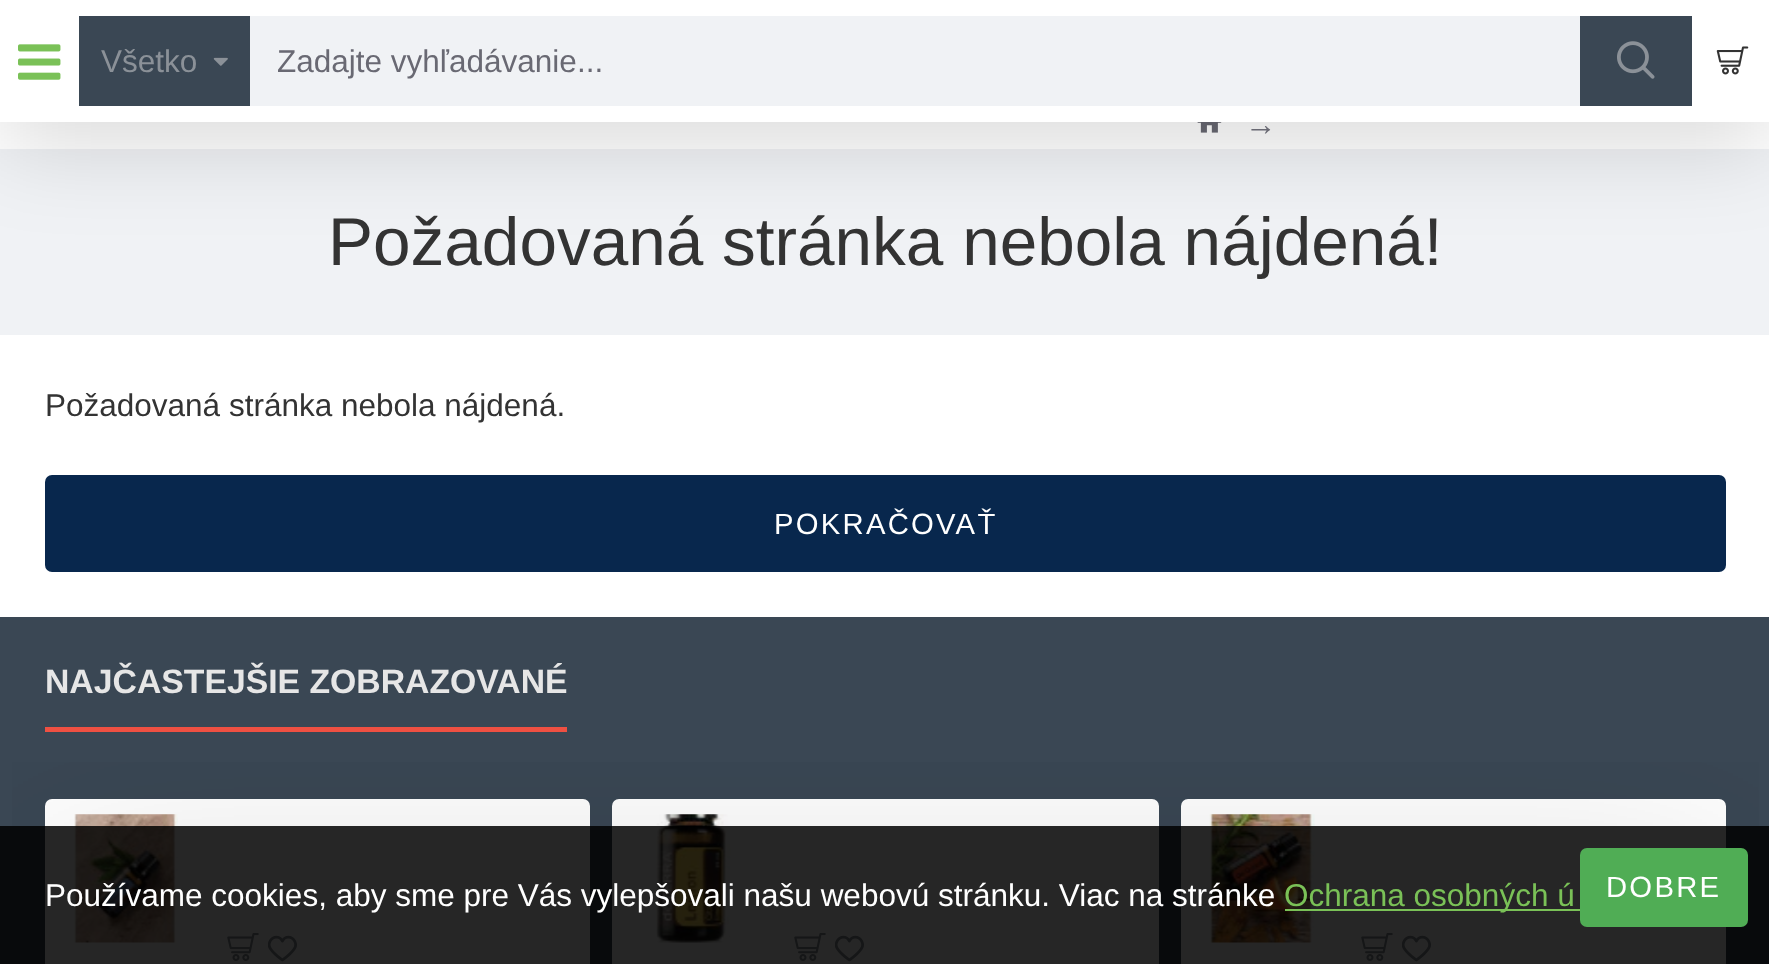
<?xml version="1.0" encoding="UTF-8"?>
<svg xmlns="http://www.w3.org/2000/svg" xmlns:xlink="http://www.w3.org/1999/xlink" width="1769" height="964">
  <defs>
    <clipPath id="clip1"><rect x="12" y="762" width="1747" height="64" /></clipPath>
  </defs>
  <rect width="100%" height="100%" fill="#ffffff" />
  <image x="1197" y="122" width="25" height="11" xlink:href="image5.png" />
  <rect y="149" width="1769" height="186" fill="#f0f2f5" />
  <rect y="-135" width="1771" height="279" fill="#000000" fill-opacity="0.15" filter="blur(45px)" />
  <rect width="1769" height="122" fill="#ffffff" />
  <image x="18" y="44" width="43" height="36" xlink:href="image1.png" />
  <rect x="79" y="16" width="171" height="90" fill="#3a4754" />
  <image x="213" y="57" width="15" height="9" xlink:href="image2.png" />
  <rect x="250" y="16" width="1330" height="90" fill="#f0f2f5" />
  <rect x="1580" y="16" width="112" height="90" fill="#3a4754" />
  <image x="1617" y="41" width="38" height="38" xlink:href="image3.png" />
  <image x="1716" y="46" width="33" height="29" xlink:href="image4.png" />
  <rect x="45" y="475" width="1681" height="97" rx="7" fill="#08274d" />
  <rect y="617" width="1769" height="347" fill="#3a4754" />
  <rect x="45" y="727" width="522" height="5" fill="#ef5042" />
  <rect x="45" y="799" width="545" height="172" rx="7" fill="#ffffff" />
  <image x="74" y="814" width="104" height="129" xlink:href="image6.png" />
  <image x="227" y="933" width="32" height="28" xlink:href="image7.png" />
  <image x="268" y="935" width="29" height="27" xlink:href="image8.png" />
  <rect x="612" y="799" width="547" height="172" rx="7" fill="#ffffff" />
  <image x="656" y="814" width="75" height="129" xlink:href="image9.png" />
  <image x="794" y="933" width="32" height="28" xlink:href="image7.png" />
  <image x="835" y="935" width="29" height="27" xlink:href="image8.png" />
  <rect x="1181" y="799" width="545" height="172" rx="7" fill="#ffffff" />
  <image x="1209" y="814" width="106" height="129" xlink:href="image10.png" />
  <image x="1361" y="933" width="32" height="28" xlink:href="image7.png" />
  <image x="1402" y="935" width="29" height="27" xlink:href="image8.png" />
  <g clip-path="url(#clip1)">
    <rect x="23" y="882" width="1725" height="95" fill="#000000" fill-opacity="0.2" filter="blur(101px)" />
  </g>
  <rect y="826" width="1769" height="138" fill="#000000" fill-opacity="0.85" />
  <rect x="1285" y="909" width="295" height="2" fill="#7ac157" />
  <rect x="1580" y="848" width="168" height="79" rx="7" fill="#50ad55" />
  <text x="101" y="72" style="font-family: Liberation Sans; font-size: 31.5px; fill: #8b9198">Všetko</text>
  <text x="277" y="72" style="font-family: Liberation Sans; font-size: 31.5px; fill: #696973">Zadajte vyhľadávanie...</text>
  <text x="1245" y="135" style="font-family: Liberation Sans; font-size: 31.5px; fill: #696973">→</text>
  <text x="328" y="265" style="font-family: Liberation Sans; font-size: 67.5px; fill: #333333">Požadovaná stránka nebola nájdená!</text>
  <text x="45" y="416" style="font-family: Liberation Sans; font-size: 31.5px; fill: #333333">Požadovaná stránka nebola nájdená.</text>
  <text x="774" y="534" style="font-family: Liberation Sans; font-size: 29.25px; letter-spacing: 2.25px; fill: #ffffff">POKRAČOVAŤ</text>
  <text x="45" y="693" style="font-family: Liberation Sans; font-size: 33.75px; font-weight: bold; fill: #e6e6e6">NAJČASTEJŠIE ZOBRAZOVANÉ</text>
  <text x="45" y="906" style="font-family: Liberation Sans; font-size: 31.5px; fill: #ffffff">Používame cookies, aby sme pre Vás vylepšovali našu webovú stránku. Viac na stránke</text>
  <text x="1284" y="906" style="font-family: Liberation Sans; font-size: 31.5px; fill: #7ac157">Ochrana osobných ú</text>
  <text x="1606" y="897" style="font-family: Liberation Sans; font-size: 29.25px; letter-spacing: 2.25px; fill: #ffffff">DOBRE</text>
</svg>
